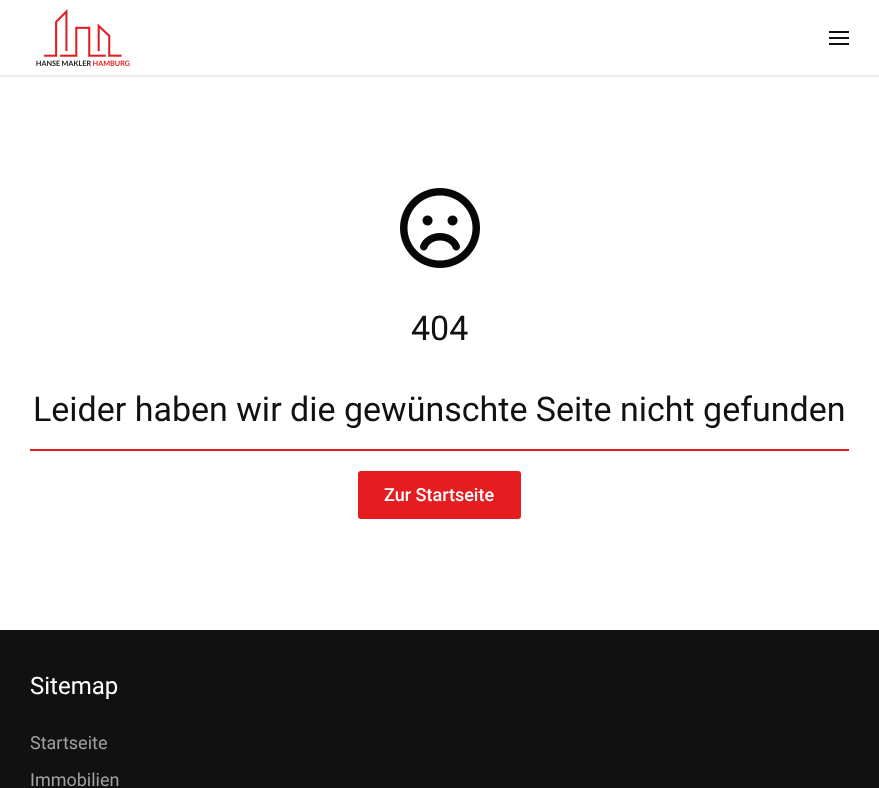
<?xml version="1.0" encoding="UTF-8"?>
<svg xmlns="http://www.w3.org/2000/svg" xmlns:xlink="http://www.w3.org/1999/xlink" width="879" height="788">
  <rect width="100%" height="100%" fill="#ffffff" />
  <rect y="75" width="879" height="2" fill="#ededed" />
  <image x="36" y="9" width="94" height="57" xlink:href="image1.png" />
  <rect x="829" y="31" width="20" height="2" fill="#111111" />
  <rect x="829" y="37" width="20" height="2" fill="#111111" />
  <rect x="829" y="43" width="20" height="2" fill="#111111" />
  <image x="400" y="188" width="80" height="80" xlink:href="image2.png" />
  <rect x="30" y="449" width="819" height="2" fill="#e51c20" />
  <rect x="358" y="471" width="163" height="48" rx="3" fill="#e51c20" />
  <rect y="630" width="879" height="158" fill="#111111" />
  <text x="411" y="340" style="font-family: Roboto; font-size: 34px; fill: #111111">404</text>
  <text x="33" y="421" style="font-family: Roboto; font-size: 34px; fill: #111111">Leider haben wir die gewünschte Seite nicht gefunden</text>
  <text x="384" y="501" style="font-family: Roboto; font-size: 18px; font-weight: 500; fill: #ffffff">Zur Startseite</text>
  <text x="30" y="694" style="font-family: Roboto; font-size: 24px; fill: #ffffff">Sitemap</text>
  <text x="30" y="749" style="font-family: Roboto; font-size: 18px; fill: #a0a0a0">Startseite</text>
  <text x="30" y="786" style="font-family: Roboto; font-size: 18px; fill: #a0a0a0">Immobilien</text>
</svg>
